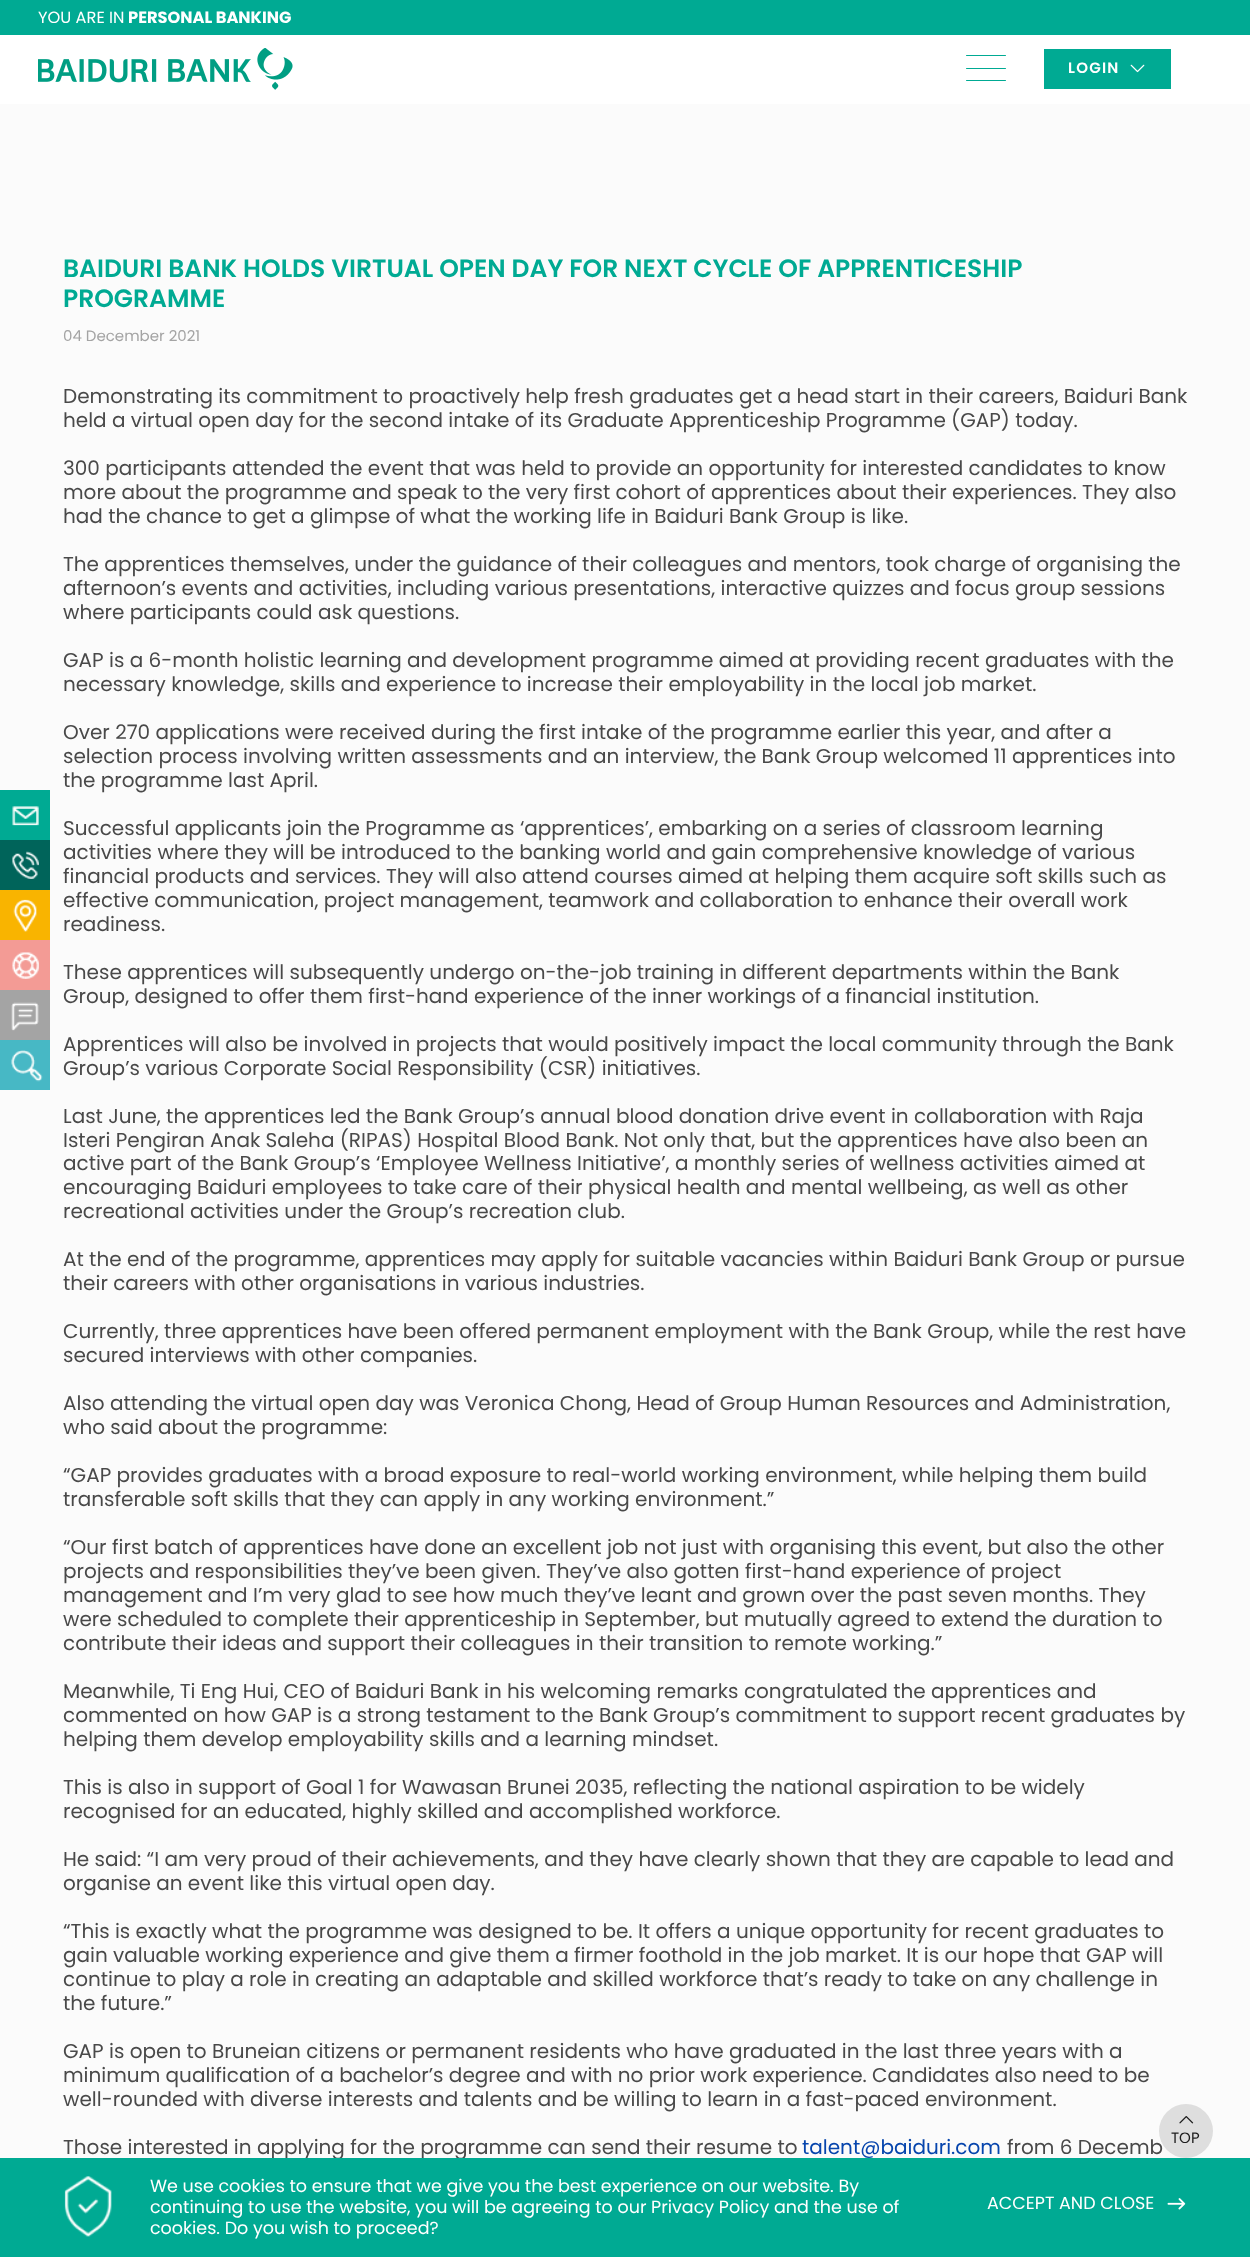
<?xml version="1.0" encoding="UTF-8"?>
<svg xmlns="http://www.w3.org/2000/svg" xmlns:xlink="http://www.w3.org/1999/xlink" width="1250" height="2257">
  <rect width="100%" height="100%" fill="#ffffff" />
  <rect width="1250" height="35" fill="#00aa93" />
  <image x="38" y="48" width="255" height="42" xlink:href="image1.png" />
  <rect x="966" y="68" width="40" height="1" rx="0.5" fill="#00aa93" />
  <rect x="966" y="55" width="40" height="1" rx="0.5" fill="#00aa93" />
  <rect x="966" y="80" width="40" height="1" rx="0.5" fill="#00aa93" />
  <rect x="1044" y="49" width="127" height="40" fill="#00aa93" />
  <image x="1130" y="64" width="15" height="9" xlink:href="image2.png" />
  <rect y="104" width="1250" height="2054" fill="#fbfbfb" />
  <rect y="790" width="50" height="50" fill="#00aa93" />
  <image x="12" y="806" width="27" height="20" xlink:href="image3.png" />
  <rect y="840" width="50" height="50" fill="#00645a" />
  <image x="12" y="851" width="27" height="28" xlink:href="image4.png" />
  <rect y="890" width="50" height="50" fill="#f9b400" />
  <image x="13" y="899" width="24" height="33" xlink:href="image5.png" />
  <rect y="940" width="50" height="50" fill="#f39b95" />
  <image x="12" y="952" width="27" height="27" xlink:href="image6.png" />
  <rect y="990" width="50" height="50" fill="#a4a4a4" />
  <image x="11" y="1002" width="28" height="29" xlink:href="image7.png" />
  <rect y="1040" width="50" height="50" fill="#47b8c5" />
  <image x="11" y="1050" width="32" height="32" xlink:href="image8.png" />
  <text x="38" y="23" style="font-family: Poppins; font-size: 16.25px; fill: #ffffff">YOU ARE IN</text>
  <text x="128" y="23" style="font-family: Poppins; font-size: 16.25px; font-weight: bold; fill: #ffffff">PERSONAL BANKING</text>
  <text x="1068" y="73" style="font-family: Poppins; font-size: 15px; font-weight: 600; letter-spacing: 1.25px; fill: #ffffff">LOGIN</text>
  <text x="63" y="277" style="font-family: Poppins; font-size: 25px; font-weight: 600; fill: #00aa93">BAIDURI BANK HOLDS VIRTUAL OPEN DAY FOR NEXT CYCLE OF APPRENTICESHIP</text>
  <text x="63" y="307" style="font-family: Poppins; font-size: 25px; font-weight: 600; fill: #00aa93">PROGRAMME</text>
  <text x="63" y="341" style="font-family: Poppins; font-size: 15px; fill: #a4a4a4">04 December 2021</text>
  <text x="63" y="403" style="font-family: Poppins; font-size: 20px; fill: #494949">Demonstrating its commitment to proactively help fresh graduates get a head start in their careers, Baiduri Bank</text>
  <text x="63" y="427" style="font-family: Poppins; font-size: 20px; fill: #494949">held a virtual open day for the second intake of its Graduate Apprenticeship Programme (GAP) today.</text>
  <text x="63" y="475" style="font-family: Poppins; font-size: 20px; fill: #494949">300 participants attended the event that was held to provide an opportunity for interested candidates to know</text>
  <text x="63" y="499" style="font-family: Poppins; font-size: 20px; fill: #494949">more about the programme and speak to the very first cohort of apprentices about their experiences. They also</text>
  <text x="63" y="523" style="font-family: Poppins; font-size: 20px; fill: #494949">had the chance to get a glimpse of what the working life in Baiduri Bank Group is like.</text>
  <text x="63" y="571" style="font-family: Poppins; font-size: 20px; fill: #494949">The apprentices themselves, under the guidance of their colleagues and mentors, took charge of organising the</text>
  <text x="63" y="595" style="font-family: Poppins; font-size: 20px; fill: #494949">afternoon’s events and activities, including various presentations, interactive quizzes and focus group sessions</text>
  <text x="63" y="619" style="font-family: Poppins; font-size: 20px; fill: #494949">where participants could ask questions.</text>
  <text x="63" y="667" style="font-family: Poppins; font-size: 20px; fill: #494949">GAP is a 6-month holistic learning and development programme aimed at providing recent graduates with the</text>
  <text x="63" y="691" style="font-family: Poppins; font-size: 20px; fill: #494949">necessary knowledge, skills and experience to increase their employability in the local job market.</text>
  <text x="63" y="739" style="font-family: Poppins; font-size: 20px; fill: #494949">Over 270 applications were received during the first intake of the programme earlier this year, and after a</text>
  <text x="63" y="763" style="font-family: Poppins; font-size: 20px; fill: #494949">selection process involving written assessments and an interview, the Bank Group welcomed 11 apprentices into</text>
  <text x="63" y="787" style="font-family: Poppins; font-size: 20px; fill: #494949">the programme last April.</text>
  <text x="63" y="835" style="font-family: Poppins; font-size: 20px; fill: #494949">Successful applicants join the Programme as ‘apprentices’, embarking on a series of classroom learning</text>
  <text x="63" y="859" style="font-family: Poppins; font-size: 20px; fill: #494949">activities where they will be introduced to the banking world and gain comprehensive knowledge of various</text>
  <text x="63" y="883" style="font-family: Poppins; font-size: 20px; fill: #494949">financial products and services. They will also attend courses aimed at helping them acquire soft skills such as</text>
  <text x="63" y="907" style="font-family: Poppins; font-size: 20px; fill: #494949">effective communication, project management, teamwork and collaboration to enhance their overall work</text>
  <text x="63" y="931" style="font-family: Poppins; font-size: 20px; fill: #494949">readiness.</text>
  <text x="63" y="979" style="font-family: Poppins; font-size: 20px; fill: #494949">These apprentices will subsequently undergo on-the-job training in different departments within the Bank</text>
  <text x="63" y="1003" style="font-family: Poppins; font-size: 20px; fill: #494949">Group, designed to offer them first-hand experience of the inner workings of a financial institution.</text>
  <text x="63" y="1051" style="font-family: Poppins; font-size: 20px; fill: #494949">Apprentices will also be involved in projects that would positively impact the local community through the Bank</text>
  <text x="63" y="1075" style="font-family: Poppins; font-size: 20px; fill: #494949">Group’s various Corporate Social Responsibility (CSR) initiatives.</text>
  <text x="63" y="1123" style="font-family: Poppins; font-size: 20px; fill: #494949">Last June, the apprentices led the Bank Group’s annual blood donation drive event in collaboration with Raja</text>
  <text x="63" y="1147" style="font-family: Poppins; font-size: 20px; fill: #494949">Isteri Pengiran Anak Saleha (RIPAS) Hospital Blood Bank. Not only that, but the apprentices have also been an</text>
  <text x="63" y="1170" style="font-family: Poppins; font-size: 20px; fill: #494949">active part of the Bank Group’s ‘Employee Wellness Initiative’, a monthly series of wellness activities aimed at</text>
  <text x="63" y="1194" style="font-family: Poppins; font-size: 20px; fill: #494949">encouraging Baiduri employees to take care of their physical health and mental wellbeing, as well as other</text>
  <text x="63" y="1218" style="font-family: Poppins; font-size: 20px; fill: #494949">recreational activities under the Group’s recreation club.</text>
  <text x="63" y="1266" style="font-family: Poppins; font-size: 20px; fill: #494949">At the end of the programme, apprentices may apply for suitable vacancies within Baiduri Bank Group or pursue</text>
  <text x="63" y="1290" style="font-family: Poppins; font-size: 20px; fill: #494949">their careers with other organisations in various industries.</text>
  <text x="63" y="1338" style="font-family: Poppins; font-size: 20px; fill: #494949">Currently, three apprentices have been offered permanent employment with the Bank Group, while the rest have</text>
  <text x="63" y="1362" style="font-family: Poppins; font-size: 20px; fill: #494949">secured interviews with other companies.</text>
  <text x="63" y="1410" style="font-family: Poppins; font-size: 20px; fill: #494949">Also attending the virtual open day was Veronica Chong, Head of Group Human Resources and Administration,</text>
  <text x="63" y="1434" style="font-family: Poppins; font-size: 20px; fill: #494949">who said about the programme:</text>
  <text x="63" y="1482" style="font-family: Poppins; font-size: 20px; fill: #494949">“GAP provides graduates with a broad exposure to real-world working environment, while helping them build</text>
  <text x="63" y="1506" style="font-family: Poppins; font-size: 20px; fill: #494949">transferable soft skills that they can apply in any working environment.”</text>
  <text x="63" y="1554" style="font-family: Poppins; font-size: 20px; fill: #494949">“Our first batch of apprentices have done an excellent job not just with organising this event, but also the other</text>
  <text x="63" y="1578" style="font-family: Poppins; font-size: 20px; fill: #494949">projects and responsibilities they’ve been given. They’ve also gotten first-hand experience of project</text>
  <text x="63" y="1602" style="font-family: Poppins; font-size: 20px; fill: #494949">management and I’m very glad to see how much they’ve leant and grown over the past seven months. They</text>
  <text x="63" y="1626" style="font-family: Poppins; font-size: 20px; fill: #494949">were scheduled to complete their apprenticeship in September, but mutually agreed to extend the duration to</text>
  <text x="63" y="1650" style="font-family: Poppins; font-size: 20px; fill: #494949">contribute their ideas and support their colleagues in their transition to remote working.”</text>
  <text x="63" y="1698" style="font-family: Poppins; font-size: 20px; fill: #494949">Meanwhile, Ti Eng Hui, CEO of Baiduri Bank in his welcoming remarks congratulated the apprentices and</text>
  <text x="63" y="1722" style="font-family: Poppins; font-size: 20px; fill: #494949">commented on how GAP is a strong testament to the Bank Group’s commitment to support recent graduates by</text>
  <text x="63" y="1746" style="font-family: Poppins; font-size: 20px; fill: #494949">helping them develop employability skills and a learning mindset.</text>
  <text x="63" y="1794" style="font-family: Poppins; font-size: 20px; fill: #494949">This is also in support of Goal 1 for Wawasan Brunei 2035, reflecting the national aspiration to be widely</text>
  <text x="63" y="1818" style="font-family: Poppins; font-size: 20px; fill: #494949">recognised for an educated, highly skilled and accomplished workforce.</text>
  <text x="63" y="1866" style="font-family: Poppins; font-size: 20px; fill: #494949">He said: “I am very proud of their achievements, and they have clearly shown that they are capable to lead and</text>
  <text x="63" y="1890" style="font-family: Poppins; font-size: 20px; fill: #494949">organise an event like this virtual open day.</text>
  <text x="63" y="1938" style="font-family: Poppins; font-size: 20px; fill: #494949">“This is exactly what the programme was designed to be. It offers a unique opportunity for recent graduates to</text>
  <text x="63" y="1962" style="font-family: Poppins; font-size: 20px; fill: #494949">gain valuable working experience and give them a firmer foothold in the job market. It is our hope that GAP will</text>
  <text x="63" y="1986" style="font-family: Poppins; font-size: 20px; fill: #494949">continue to play a role in creating an adaptable and skilled workforce that’s ready to take on any challenge in</text>
  <text x="63" y="2010" style="font-family: Poppins; font-size: 20px; fill: #494949">the future.”</text>
  <text x="63" y="2058" style="font-family: Poppins; font-size: 20px; fill: #494949">GAP is open to Bruneian citizens or permanent residents who have graduated in the last three years with a</text>
  <text x="63" y="2082" style="font-family: Poppins; font-size: 20px; fill: #494949">minimum qualification of a bachelor’s degree and with no prior work experience. Candidates also need to be</text>
  <text x="63" y="2106" style="font-family: Poppins; font-size: 20px; fill: #494949">well-rounded with diverse interests and talents and be willing to learn in a fast-paced environment.</text>
  <text x="63" y="2154" style="font-family: Poppins; font-size: 20px; fill: #494949">Those interested in applying for the programme can send their resume to</text>
  <text x="802" y="2154" style="font-family: Poppins; font-size: 20px; fill: #0645ad">talent@baiduri.com</text>
  <text x="1007" y="2154" style="font-family: Poppins; font-size: 20px; fill: #494949">from 6 Decemb</text>
  <circle cx="1186" cy="2131" r="27" fill="#dedede" />
  <image x="1179" y="2116" width="15" height="8" xlink:href="image9.png" />
  <text x="1171" y="2143" style="font-family: Poppins; font-size: 15px; fill: #1b1b1b">TOP</text>
  <rect y="2158" width="1250" height="99" fill="#00aa93" />
  <image x="64" y="2176" width="48" height="61" xlink:href="image10.png" />
  <text x="150" y="2192" style="font-family: Poppins; font-size: 17.5px; fill: #ffffff">We use cookies to ensure that we give you the best experience on our website. By</text>
  <text x="150" y="2213" style="font-family: Poppins; font-size: 17.5px; fill: #ffffff">continuing to use the website, you will be agreeing to our Privacy Policy and the use of</text>
  <text x="150" y="2234" style="font-family: Poppins; font-size: 17.5px; fill: #ffffff">cookies. Do you wish to proceed?</text>
  <text x="987" y="2209" style="font-family: Poppins; font-size: 17.5px; fill: #ffffff">ACCEPT AND CLOSE</text>
  <image x="1167" y="2198" width="19" height="12" xlink:href="image11.png" />
</svg>
